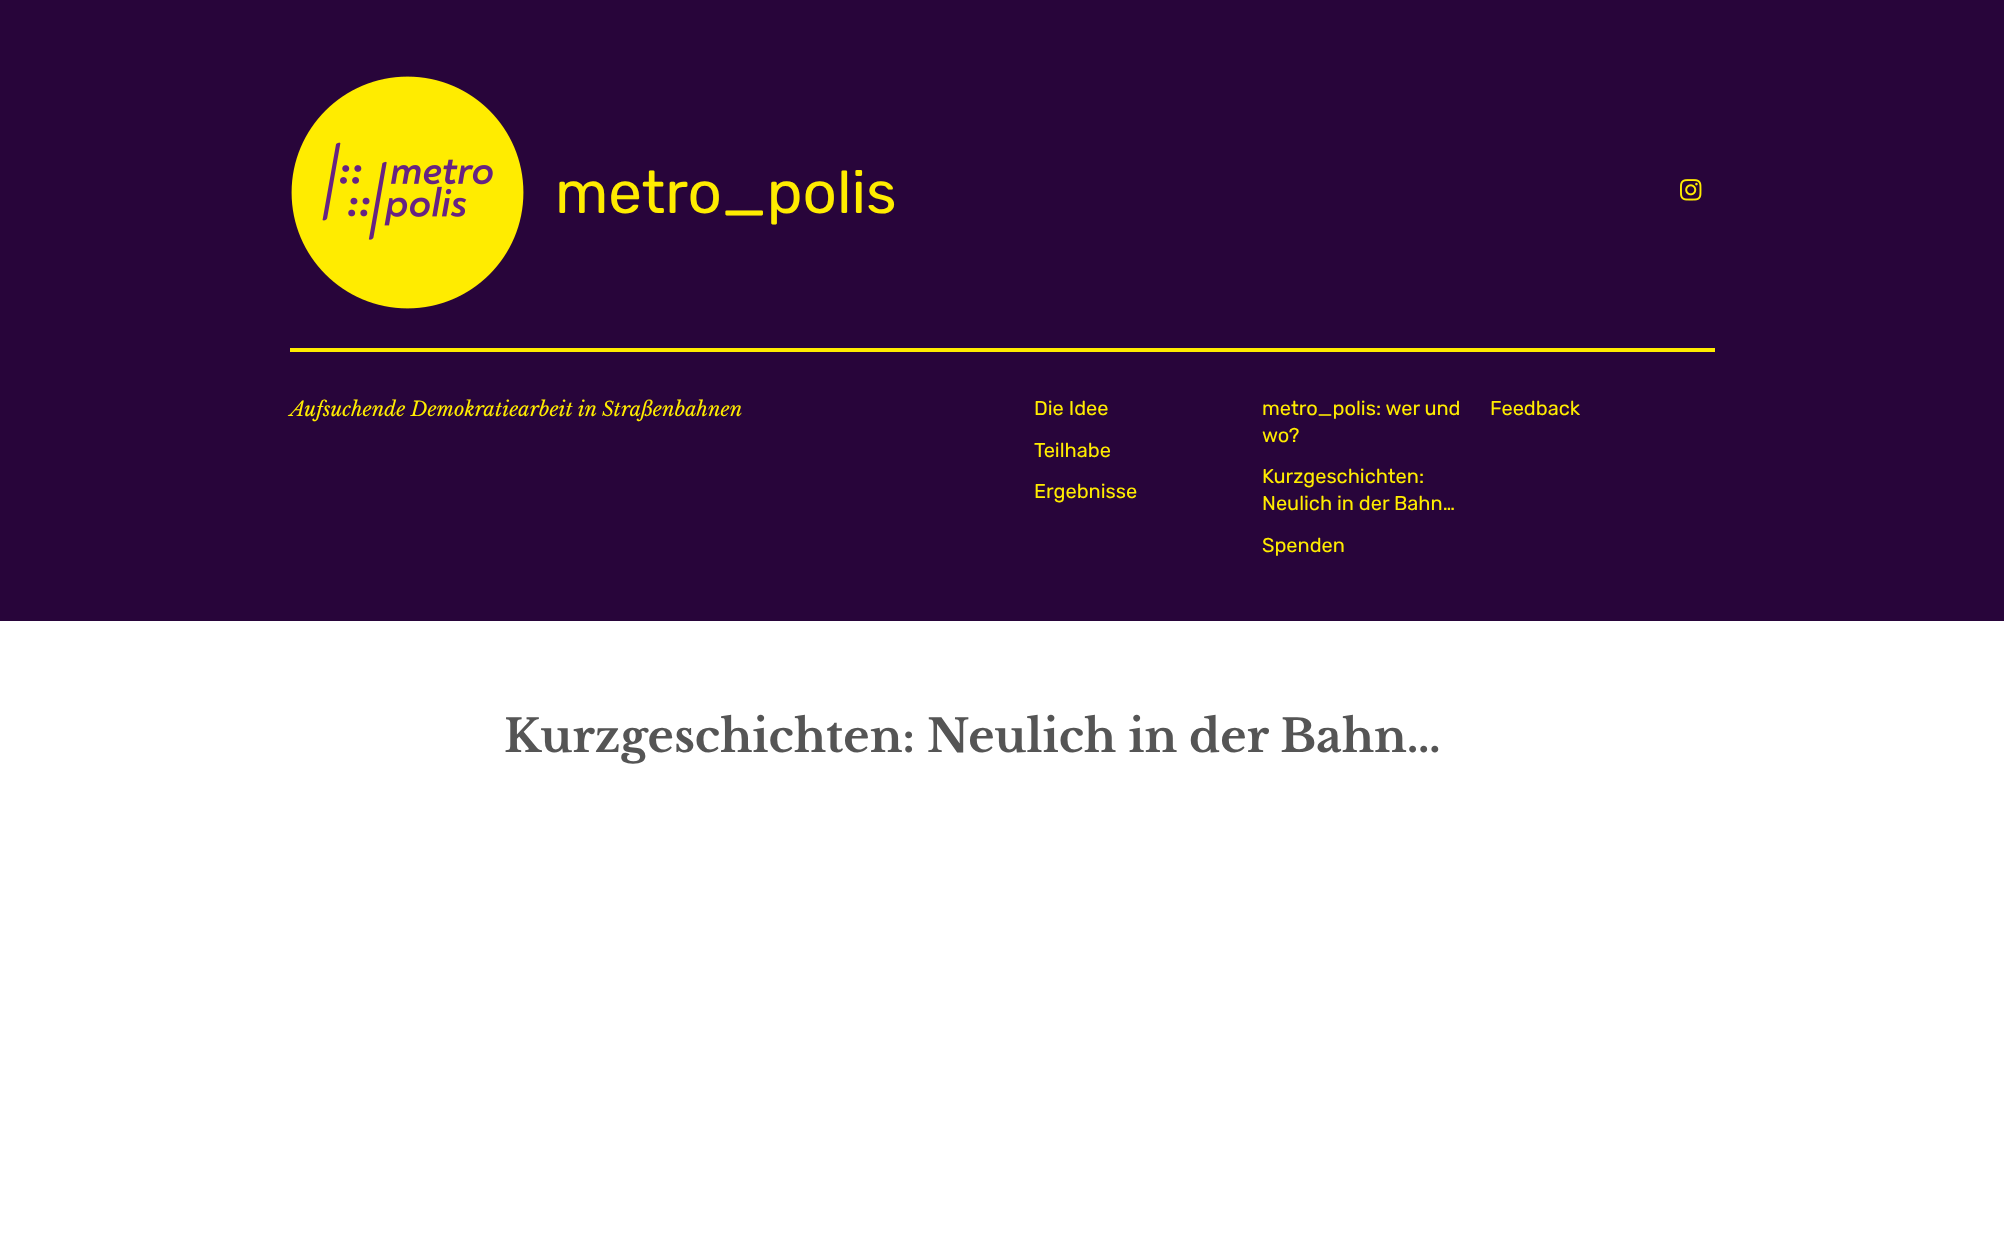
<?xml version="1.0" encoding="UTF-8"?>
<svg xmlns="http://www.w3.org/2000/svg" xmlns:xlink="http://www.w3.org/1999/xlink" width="2004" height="1246">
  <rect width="100%" height="100%" fill="#ffffff" />
  <rect width="2004" height="621" fill="#28053a" />
  <rect x="290" y="348" width="1425" height="4" fill="#ffec00" />
  <image x="291" y="76" width="233" height="233" xlink:href="image1.png" />
  <image x="1680" y="179" width="22" height="22" xlink:href="image2.png" />
  <text x="555" y="213" style="font-family: Rubik; font-size: 60px; fill: #ffec00">metro_polis</text>
  <text x="290" y="416" style="font-family: Libre Baskerville; font-size: 20px; font-style: italic; fill: #ffec00">Aufsuchende Demokratiearbeit in Straßenbahnen</text>
  <text x="1034" y="415" style="font-family: Rubik; font-size: 20px; fill: #ffec00">Die Idee</text>
  <text x="1034" y="457" style="font-family: Rubik; font-size: 20px; fill: #ffec00">Teilhabe</text>
  <text x="1034" y="498" style="font-family: Rubik; font-size: 20px; fill: #ffec00">Ergebnisse</text>
  <text x="1262" y="415" style="font-family: Rubik; font-size: 20px; fill: #ffec00">metro_polis: wer und</text>
  <text x="1262" y="442" style="font-family: Rubik; font-size: 20px; fill: #ffec00">wo?</text>
  <text x="1262" y="483" style="font-family: Rubik; font-size: 20px; fill: #ffec00">Kurzgeschichten:</text>
  <text x="1262" y="510" style="font-family: Rubik; font-size: 20px; fill: #ffec00">Neulich in der Bahn…</text>
  <text x="1262" y="552" style="font-family: Rubik; font-size: 20px; fill: #ffec00">Spenden</text>
  <text x="1490" y="415" style="font-family: Rubik; font-size: 20px; fill: #ffec00">Feedback</text>
  <text x="504" y="752" style="font-family: Libre Baskerville; font-size: 45px; font-weight: bold; fill: #555555">Kurzgeschichten: Neulich in der Bahn…</text>
</svg>
